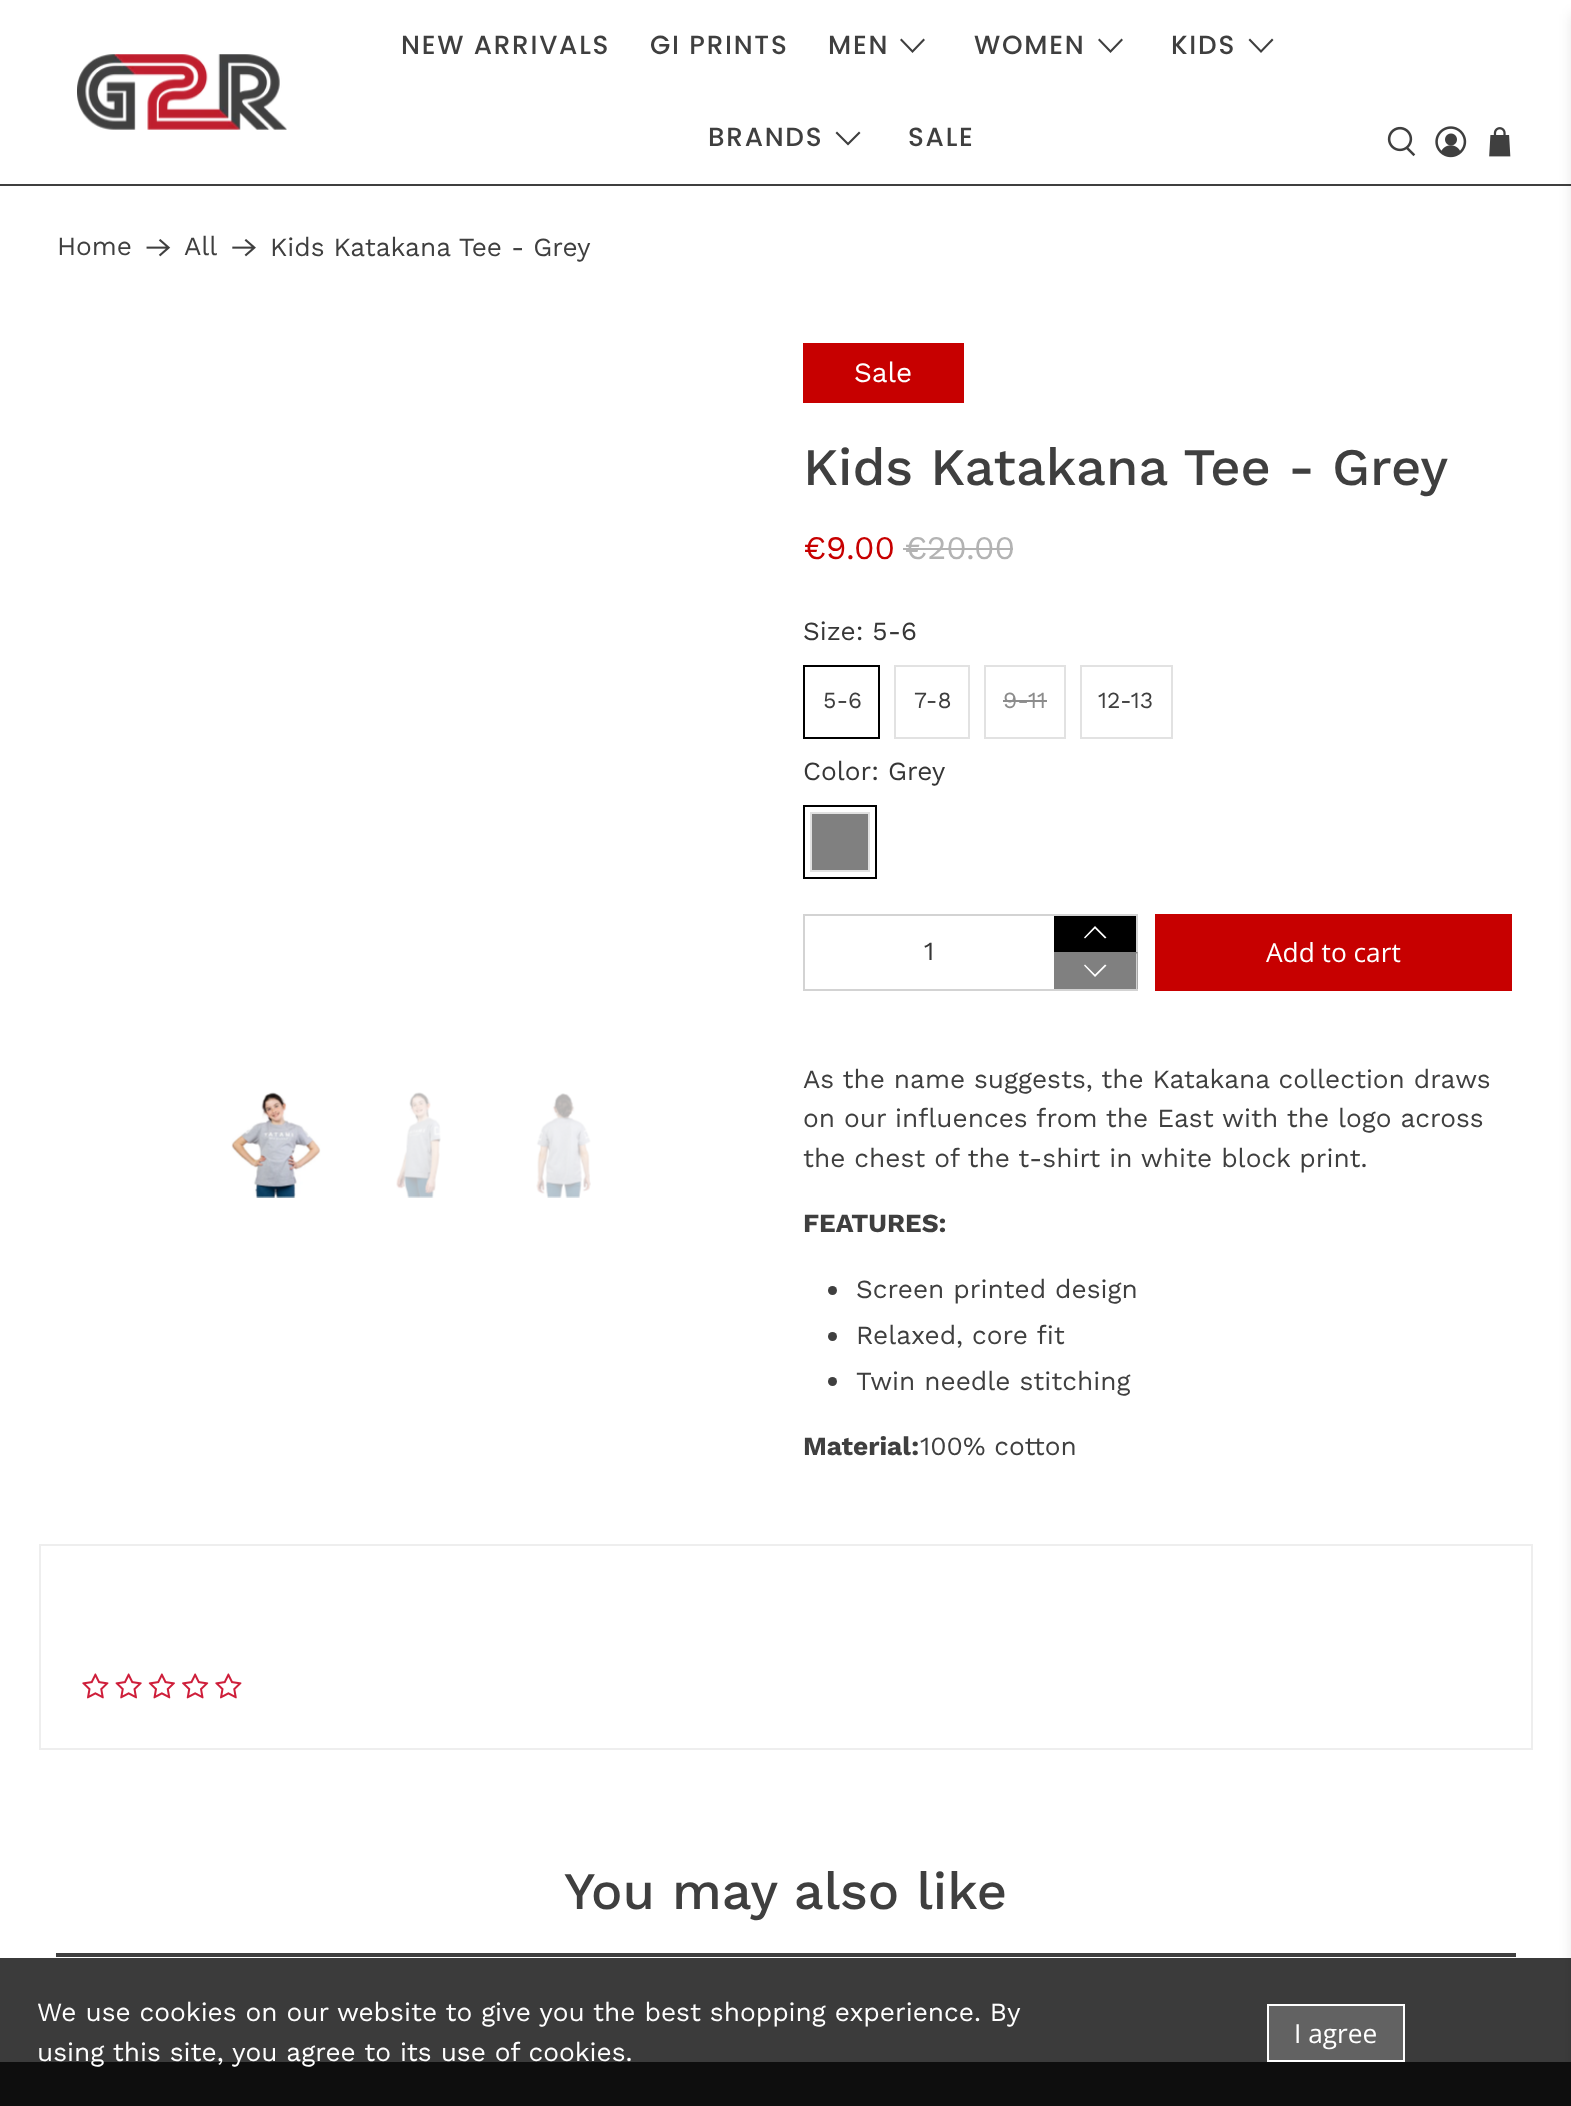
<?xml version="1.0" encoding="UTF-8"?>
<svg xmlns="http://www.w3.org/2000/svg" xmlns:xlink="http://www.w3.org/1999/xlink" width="1571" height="2106">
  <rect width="100%" height="100%" fill="#ffffff" />
  <rect y="184" width="1571" height="2" fill="#3f3f3f" />
  <image x="77" y="54" width="210" height="76" xlink:href="image1.png" />
  <path d="M 912.5 53 l -12.5 -13 l 1.5 -1.5 l 11 11.5 l 11 -11.5 l 1.5 1.5 z" fill="#3f3f3f" />
  <path d="M 1110.5 53 l -12.5 -13 l 1.5 -1.5 l 11 11.5 l 11 -11.5 l 1.5 1.5 z" fill="#3f3f3f" />
  <path d="M 1261 53 l -12.5 -13 l 1.5 -1.5 l 11 11.5 l 11 -11.5 l 1.5 1.5 z" fill="#3f3f3f" />
  <path d="M 848 145.5 l -12.5 -12.5 l 1.5 -1.5 l 11 11 l 11 -11 l 1.5 1.5 z" fill="#3f3f3f" />
  <image x="1387" y="126" width="29" height="31" xlink:href="image2.png" />
  <image x="1435" y="126" width="32" height="32" xlink:href="image3.png" />
  <image x="1489" y="127" width="22" height="30" xlink:href="image4.png" />
  <rect y="2062" width="1571" height="44" fill="#3f3f3f" />
  <rect x="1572" y="14" width="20" height="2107" fill="#0a0a0a" fill-opacity="0.1" filter="blur(7px)" />
  <image x="146" y="239" width="25" height="18" xlink:href="image5.png" />
  <image x="232" y="239" width="24" height="18" xlink:href="image6.png" />
  <image x="231" y="1092" width="90" height="106" xlink:href="image7.png" />
  <image x="396" y="1092" width="45" height="106" xlink:href="image8.png" />
  <image x="536" y="1093" width="55" height="105" xlink:href="image9.png" />
  <rect x="803" y="343" width="161" height="60" fill="#c70000" />
  <rect x="903" y="548" width="110" height="2" fill="#b3b3b3" />
  <rect x="804" y="666" width="75" height="72" fill="none" stroke="#000000" stroke-width="2" />
  <rect x="895" y="666" width="74" height="72" fill="none" stroke="#e2e2e2" stroke-width="2" />
  <rect x="985" y="666" width="80" height="72" fill="none" stroke="#e2e2e2" stroke-width="2" />
  <rect x="1003" y="700" width="44" height="2" fill="#8c8c8c" />
  <rect x="1081" y="666" width="91" height="72" fill="none" stroke="#e2e2e2" stroke-width="2" />
  <rect x="804" y="806" width="72" height="72" fill="none" stroke="#000000" stroke-width="2" />
  <rect x="811" y="813" width="58" height="58" fill="#808080" stroke="#e2e2e2" stroke-width="2" />
  <rect x="803" y="914" width="335" height="2" fill="#d3d3d3" />
  <rect x="803" y="989" width="251" height="2" fill="#d3d3d3" />
  <rect x="803" y="914" width="2" height="77" fill="#d3d3d3" />
  <rect x="1054" y="916" width="82" height="36" fill="#000000" />
  <rect x="1136" y="914" width="2" height="38" fill="#d3d3d3" />
  <path d="M 1105 938.5 l -10 -10 l -10 10 l -1 -1 l 11 -11.5 l 11.5 11.5 z" fill="#ffffff" />
  <rect x="1054" y="952" width="84" height="37" fill="#808080" />
  <path d="M 1137.5 952 v 38.5 l -1.5 -1.5 v -35 z" fill="#d3d3d3" />
  <rect x="1054" y="989" width="84" height="2" fill="#d3d3d3" />
  <path d="M 1095 977 l -11 -11.5 l 1 -1 l 10 10 l 10 -10 l 1.5 1 z" fill="#ffffff" />
  <rect x="1155" y="914" width="357" height="77" fill="#c70000" />
  <circle cx="832.5" cy="1290.5" r="4.5" fill="#3f3f3f" />
  <circle cx="832.5" cy="1336.5" r="4.5" fill="#3f3f3f" />
  <circle cx="832.5" cy="1381.5" r="4.5" fill="#3f3f3f" />
  <rect x="40" y="1545" width="1492" height="204" fill="none" stroke="#eeeeee" stroke-width="2" />
  <image x="82" y="1673" width="27" height="26" xlink:href="image10.png" />
  <image x="115" y="1673" width="27" height="26" xlink:href="image11.png" />
  <image x="148" y="1673" width="27" height="26" xlink:href="image12.png" />
  <image x="182" y="1673" width="27" height="26" xlink:href="image13.png" />
  <image x="215" y="1673" width="27" height="26" xlink:href="image10.png" />
  <rect x="56" y="1953" width="1460" height="4" fill="#3f3f3f" />
  <rect y="1958" width="1571" height="148" fill="#000000" fill-opacity="0.77" />
  <rect x="1268" y="2005" width="136" height="56" fill="#626262" stroke="#ffffff" stroke-width="2" />
  <text x="401" y="54" style="font-family: Poppins; font-size: 26.25px; font-weight: 500; letter-spacing: 1.75px; fill: #3f3f3f">NEW ARRIVALS</text>
  <text x="650" y="54" style="font-family: Poppins; font-size: 26.25px; font-weight: 500; letter-spacing: 1.75px; fill: #3f3f3f">GI PRINTS</text>
  <text x="828" y="54" style="font-family: Poppins; font-size: 26.25px; font-weight: 500; letter-spacing: 1.75px; fill: #3f3f3f">MEN</text>
  <text x="974" y="54" style="font-family: Poppins; font-size: 26.25px; font-weight: 500; letter-spacing: 1.75px; fill: #3f3f3f">WOMEN</text>
  <text x="1171" y="54" style="font-family: Poppins; font-size: 26.25px; font-weight: 500; letter-spacing: 1.75px; fill: #3f3f3f">KIDS</text>
  <text x="708" y="146" style="font-family: Poppins; font-size: 26.25px; font-weight: 500; letter-spacing: 1.75px; fill: #3f3f3f">BRANDS</text>
  <text x="908" y="146" style="font-family: Poppins; font-size: 26.25px; font-weight: 500; letter-spacing: 1.75px; fill: #3f3f3f">SALE</text>
  <text x="57" y="255" style="font-family: Work Sans; font-size: 26.25px; fill: #3f3f3f">Home</text>
  <text x="184" y="255" style="font-family: Work Sans; font-size: 26.25px; fill: #3f3f3f">All</text>
  <text x="270" y="256" style="font-family: Work Sans; font-size: 26.25px; fill: #3f3f3f">Kids Katakana Tee - Grey</text>
  <text x="854" y="382" style="font-family: Work Sans; font-size: 28px; fill: #ffffff">Sale</text>
  <text x="803" y="485" style="font-family: Work Sans; font-size: 52.5px; font-weight: 500; fill: #3f3f3f">Kids Katakana Tee - Grey</text>
  <text x="803" y="559" style="font-family: Work Sans; font-size: 33px; fill: #c70000">€9.00</text>
  <text x="904" y="559" style="font-family: Work Sans; font-size: 33px; fill: #b3b3b3">€20.00</text>
  <text x="803" y="640" style="font-family: Work Sans; font-size: 26.25px; fill: #363636">Size: 5-6</text>
  <text x="823" y="708" style="font-family: Work Sans; font-size: 23px; fill: #3f3f3f">5-6</text>
  <text x="914" y="708" style="font-family: Work Sans; font-size: 23px; fill: #3f3f3f">7-8</text>
  <text x="1003" y="708" style="font-family: Work Sans; font-size: 23px; fill: #8c8c8c">9-11</text>
  <text x="1098" y="708" style="font-family: Work Sans; font-size: 23px; fill: #3f3f3f">12-13</text>
  <text x="803" y="780" style="font-family: Work Sans; font-size: 26.25px; fill: #363636">Color: Grey</text>
  <text x="924" y="960" style="font-family: Work Sans; font-size: 26.25px; fill: #363636">1</text>
  <text x="1266" y="962" style="font-family: Open Sans; font-size: 26.25px; fill: #ffffff">Add to cart</text>
  <text x="803" y="1088" style="font-family: Work Sans; font-size: 26.25px; fill: #3f3f3f">As the name suggests, the Katakana collection draws</text>
  <text x="803" y="1127" style="font-family: Work Sans; font-size: 26.25px; fill: #3f3f3f">on our influences from the East with the logo across</text>
  <text x="803" y="1167" style="font-family: Work Sans; font-size: 26.25px; fill: #3f3f3f">the chest of the t-shirt in white block print.</text>
  <text x="803" y="1232" style="font-family: Work Sans; font-size: 26.25px; font-weight: bold; fill: #3f3f3f">FEATURES:</text>
  <text x="856" y="1298" style="font-family: Work Sans; font-size: 26.25px; fill: #3f3f3f">Screen printed design</text>
  <text x="856" y="1344" style="font-family: Work Sans; font-size: 26.25px; fill: #3f3f3f">Relaxed, core fit</text>
  <text x="856" y="1390" style="font-family: Work Sans; font-size: 26.25px; fill: #3f3f3f">Twin needle stitching</text>
  <text x="803" y="1455" style="font-family: Work Sans; font-size: 26.25px; font-weight: bold; fill: #3f3f3f">Material:</text>
  <text x="920" y="1455" style="font-family: Work Sans; font-size: 26.25px; fill: #3f3f3f">100% cotton</text>
  <text x="564" y="1909" style="font-family: Work Sans; font-size: 52.5px; font-weight: 500; fill: #3f3f3f">You may also like</text>
  <text x="37" y="2021" style="font-family: Work Sans; font-size: 26.25px; fill: #ffffff">We use cookies on our website to give you the best shopping experience. By</text>
  <text x="37" y="2061" style="font-family: Work Sans; font-size: 26.25px; fill: #ffffff">using this site, you agree to its use of cookies.</text>
  <text x="1294" y="2043" style="font-family: Open Sans; font-size: 26.25px; fill: #ffffff">I agree</text>
</svg>
